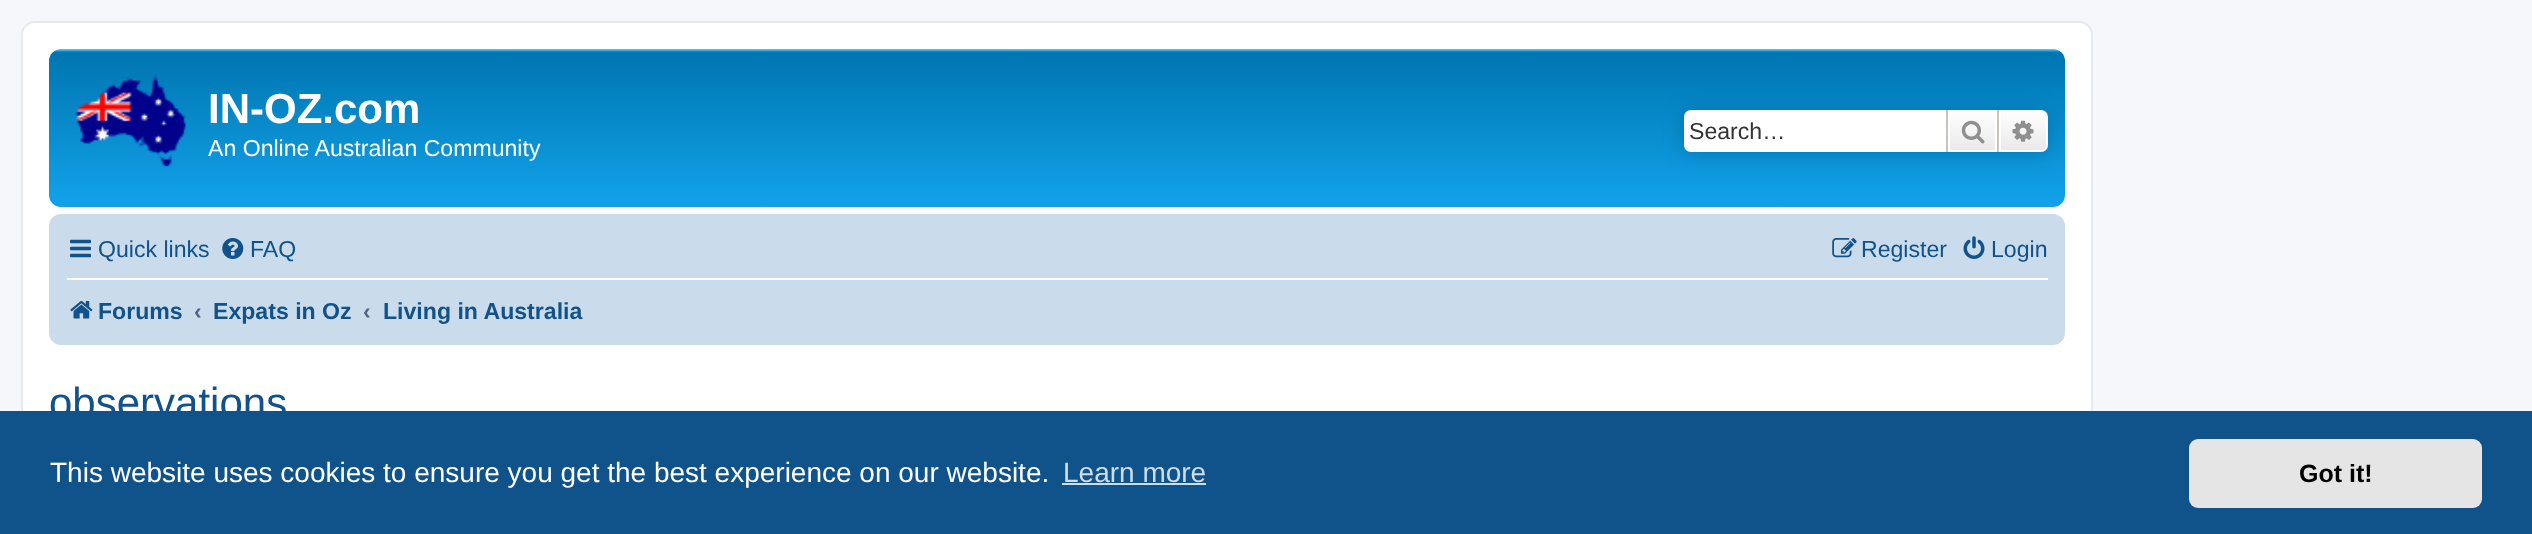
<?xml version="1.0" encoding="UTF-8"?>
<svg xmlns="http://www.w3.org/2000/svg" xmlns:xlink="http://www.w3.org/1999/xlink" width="2532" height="534">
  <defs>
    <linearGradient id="g1" gradientUnits="userSpaceOnUse" x1="1057" y1="49" x2="1057" y2="210"><stop offset="0" stop-color="#6aceff" /><stop offset="0.02" stop-color="#0076b1" /><stop offset="1" stop-color="#12a3eb" /></linearGradient>
    <linearGradient id="g2" gradientUnits="userSpaceOnUse" x1="1972" y1="110" x2="1972" y2="152"><stop offset="0" stop-color="#ffffff" /><stop offset="1" stop-color="#e9e9e9" /></linearGradient>
    <linearGradient id="g3" gradientUnits="userSpaceOnUse" x1="2023" y1="110" x2="2023" y2="152"><stop offset="0" stop-color="#ffffff" /><stop offset="1" stop-color="#e9e9e9" /></linearGradient>
  </defs>
  <rect width="100%" height="100%" fill="#f5f7fa" />
  <rect x="22" y="22" width="2070" height="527" rx="13" fill="#ffffff" stroke="#e6e9ed" stroke-width="2" />
  <rect x="49" y="49" width="2016" height="158" rx="12" fill="url(#g1)" />
  <image x="75" y="75" width="111" height="92" xlink:href="image1.png" />
  <rect x="1684" y="110" width="364" height="42" rx="7" fill="#0075b0" filter="blur(9px)" />
  <path d="M 1691 110 h 255 v 42 h -255 c -4 0 -7 -3 -7 -7 v -28 c 0 -4 3 -7 7 -7 z" fill="#ffffff" />
  <rect x="1950" y="112" width="45" height="38" fill="url(#g2)" />
  <rect x="1949" y="111" width="47" height="40" fill="none" stroke="#ffffff" stroke-width="2" />
  <rect x="1997" y="110" width="2" height="42" fill="#c7c3bf" />
  <rect x="1946" y="110" width="2" height="42" fill="#c7c3bf" />
  <image x="1961" y="120" width="24" height="24" xlink:href="image2.png" />
  <path d="M 2000 111 h 41 c 3.5 0 6 2.5 6 6 v 28 c 0 3.5 -2.5 6 -6 6 h -41 z" fill="url(#g3)" stroke="#ffffff" stroke-width="2" />
  <image x="2012" y="120" width="22" height="22" xlink:href="image3.png" />
  <rect x="49" y="214" width="2016" height="131" rx="12" fill="#cadceb" />
  <image x="70" y="239" width="21" height="19" xlink:href="image4.png" />
  <image x="222" y="238" width="22" height="21" xlink:href="image5.png" />
  <image x="1832" y="238" width="25" height="20" xlink:href="image6.png" />
  <image x="1963" y="236" width="22" height="23" xlink:href="image7.png" />
  <rect x="67" y="278" width="1981" height="2" fill="#ffffff" />
  <image x="70" y="301" width="23" height="18" xlink:href="image8.png" />
  <text x="208" y="123" style="font-family: Liberation Sans; font-size: 42px; font-weight: bold; fill: #ffffff">IN-OZ.com</text>
  <text x="208" y="156" style="font-family: Liberation Sans; font-size: 23.1px; fill: #ffffff">An Online Australian Community</text>
  <text x="1689" y="139" style="font-family: Liberation Sans; font-size: 23.1px; fill: #333333">Search…</text>
  <text x="98" y="257" style="font-family: Liberation Sans; font-size: 23.1px; fill: #105289">Quick links</text>
  <text x="250" y="257" style="font-family: Liberation Sans; font-size: 23.1px; fill: #105289">FAQ</text>
  <text x="1861" y="257" style="font-family: Liberation Sans; font-size: 23.1px; fill: #105289">Register</text>
  <text x="1991" y="257" style="font-family: Liberation Sans; font-size: 23.1px; fill: #105289">Login</text>
  <text x="98" y="319" style="font-family: Liberation Sans; font-size: 23.1px; font-weight: bold; fill: #105289">Forums</text>
  <text x="194" y="319" style="font-family: Liberation Sans; font-size: 23.1px; font-weight: bold; fill: #536482">‹</text>
  <text x="213" y="319" style="font-family: Liberation Sans; font-size: 23.1px; font-weight: bold; fill: #105289">Expats in Oz</text>
  <text x="363" y="319" style="font-family: Liberation Sans; font-size: 23.1px; font-weight: bold; fill: #536482">‹</text>
  <text x="383" y="319" style="font-family: Liberation Sans; font-size: 23.1px; font-weight: bold; fill: #105289">Living in Australia</text>
  <text x="49" y="417" style="font-family: Liberation Sans; font-size: 42px; fill: #105289">observations</text>
  <rect y="411" width="2532" height="123" fill="#0f538a" />
  <text x="50" y="482" style="font-family: Liberation Sans; font-size: 28px; fill: #ffffff">This website uses cookies to ensure you get the best experience on our website.</text>
  <text x="1063" y="482" style="font-family: Liberation Sans; font-size: 28px; fill: #cfdde8">Learn more</text>
  <rect x="1062" y="483" width="144" height="2" fill="#cfdde8" />
  <rect x="2189" y="439" width="293" height="69" rx="9" fill="#e5e5e5" />
  <text x="2299" y="482" style="font-family: Liberation Sans; font-size: 25px; font-weight: bold; fill: #000000">Got it!</text>
</svg>
